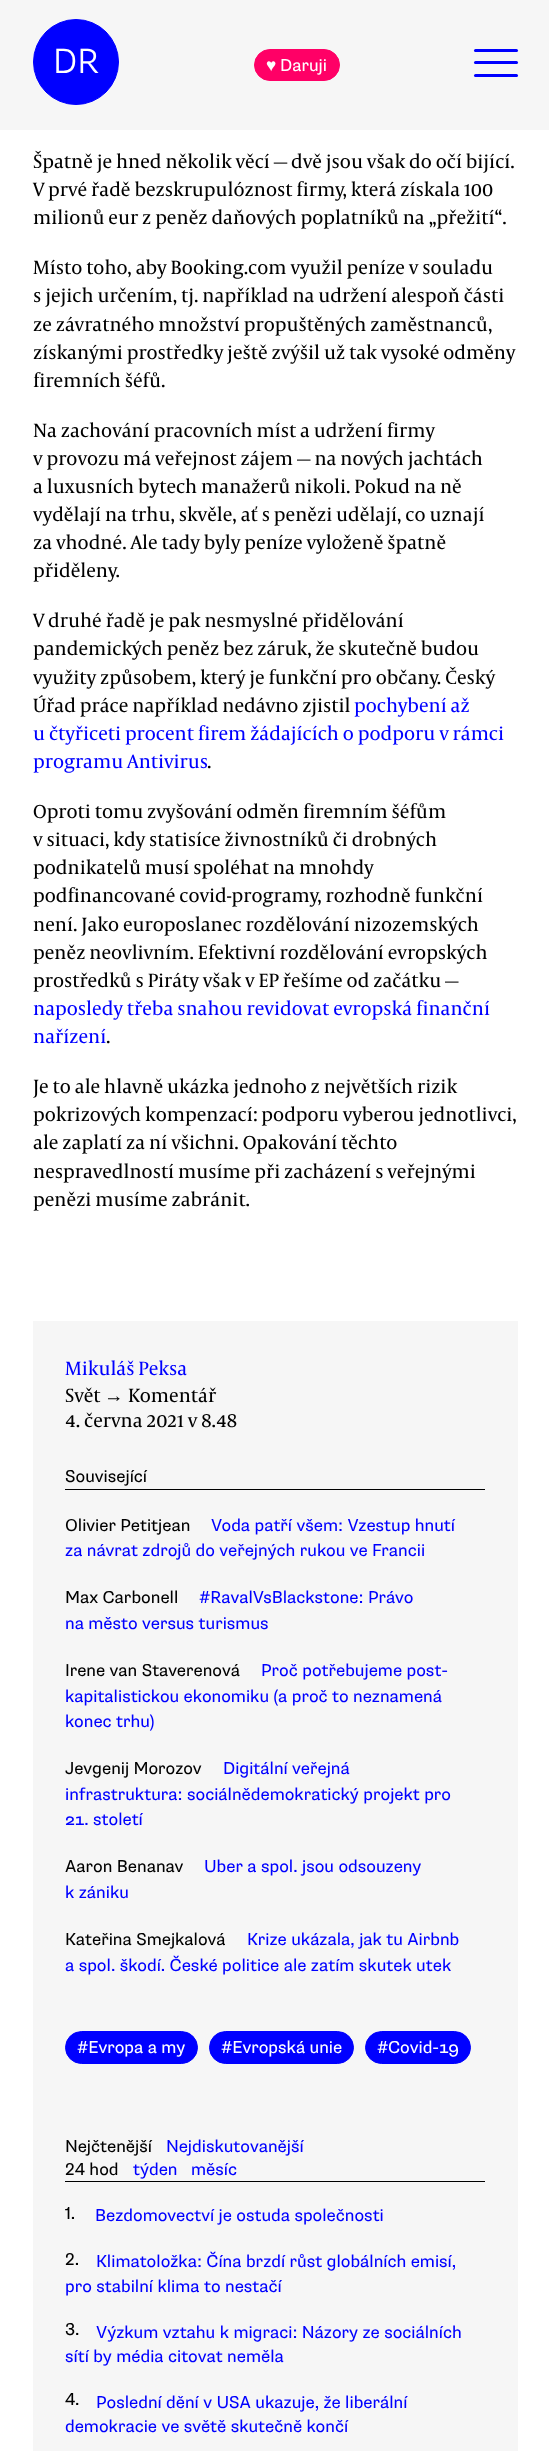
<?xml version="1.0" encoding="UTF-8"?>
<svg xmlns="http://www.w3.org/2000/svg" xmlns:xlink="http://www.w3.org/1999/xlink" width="549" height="2451">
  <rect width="100%" height="100%" fill="#ffffff" />
  <rect width="549" height="130" fill="#f6f6f6" />
  <circle cx="76" cy="62" r="42.5" fill="#0000ff" stroke="#0000ff" />
  <rect x="254.5" y="49.5" width="85" height="31" rx="15.5" fill="#ff0066" stroke="#ff0066" />
  <rect x="474" y="61" width="44" height="3" rx="1.5" fill="#0000ff" />
  <rect x="474" y="49" width="44" height="3" rx="1.5" fill="#0000ff" />
  <rect x="474" y="74" width="44" height="3" rx="1.5" fill="#0000ff" />
  <rect x="33" y="1321" width="485" height="1130" fill="#f6f6f6" />
  <rect x="65" y="1489" width="420" height="1" fill="#000000" />
  <rect x="65.5" y="2031.5" width="132" height="32" rx="16" fill="#0000ff" stroke="#0000ff" />
  <rect x="209.5" y="2031.5" width="144" height="32" rx="16" fill="#0000ff" stroke="#0000ff" />
  <rect x="365.5" y="2031.5" width="105" height="32" rx="16" fill="#0000ff" stroke="#0000ff" />
  <rect x="65" y="2181" width="420" height="1" fill="#000000" />
  <text x="53" y="73" style="font-family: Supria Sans; font-size: 35px; font-weight: 300; fill: #ffffff">DR</text>
  <text x="266" y="71" style="font-family: Liberation Sans; font-size: 17.3px; fill: #ffffff">♥</text>
  <text x="280" y="71" style="font-family: Supria Sans; font-size: 17.3px; fill: #ffffff">Daruji</text>
  <text x="33" y="168" style="font-family: 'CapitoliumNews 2'; font-size: 19.5px; fill: #000000">Špatně je hned několik věcí — dvě jsou však do očí bijící.</text>
  <text x="33" y="196" style="font-family: 'CapitoliumNews 2'; font-size: 19.5px; fill: #000000">V prvé řadě bezskrupulóznost firmy, která získala 100</text>
  <text x="33" y="224" style="font-family: 'CapitoliumNews 2'; font-size: 19.5px; fill: #000000">milionů eur z peněz daňových poplatníků na „přežití“.</text>
  <text x="33" y="274" style="font-family: 'CapitoliumNews 2'; font-size: 19.5px; fill: #000000">Místo toho, aby Booking.com využil peníze v souladu</text>
  <text x="33" y="302" style="font-family: 'CapitoliumNews 2'; font-size: 19.5px; fill: #000000">s jejich určením, tj. například na udržení alespoň části</text>
  <text x="33" y="331" style="font-family: 'CapitoliumNews 2'; font-size: 19.5px; fill: #000000">ze závratného množství propuštěných zaměstnanců,</text>
  <text x="33" y="359" style="font-family: 'CapitoliumNews 2'; font-size: 19.5px; fill: #000000">získanými prostředky ještě zvýšil už tak vysoké odměny</text>
  <text x="33" y="387" style="font-family: 'CapitoliumNews 2'; font-size: 19.5px; fill: #000000">firemních šéfů.</text>
  <text x="33" y="437" style="font-family: 'CapitoliumNews 2'; font-size: 19.5px; fill: #000000">Na zachování pracovních míst a udržení firmy</text>
  <text x="33" y="465" style="font-family: 'CapitoliumNews 2'; font-size: 19.5px; fill: #000000">v provozu má veřejnost zájem — na nových jachtách</text>
  <text x="33" y="493" style="font-family: 'CapitoliumNews 2'; font-size: 19.5px; fill: #000000">a luxusních bytech manažerů nikoli. Pokud na ně</text>
  <text x="33" y="521" style="font-family: 'CapitoliumNews 2'; font-size: 19.5px; fill: #000000">vydělají na trhu, skvěle, ať s penězi udělají, co uznají</text>
  <text x="33" y="549" style="font-family: 'CapitoliumNews 2'; font-size: 19.5px; fill: #000000">za vhodné. Ale tady byly peníze vyloženě špatně</text>
  <text x="33" y="577" style="font-family: 'CapitoliumNews 2'; font-size: 19.5px; fill: #000000">přiděleny.</text>
  <text x="33" y="627" style="font-family: 'CapitoliumNews 2'; font-size: 19.5px; fill: #000000">V druhé řadě je pak nesmyslné přidělování</text>
  <text x="33" y="655" style="font-family: 'CapitoliumNews 2'; font-size: 19.5px; fill: #000000">pandemických peněz bez záruk, že skutečně budou</text>
  <text x="33" y="684" style="font-family: 'CapitoliumNews 2'; font-size: 19.5px; fill: #000000">využity způsobem, který je funkční pro občany. Český</text>
  <text x="33" y="712" style="font-family: 'CapitoliumNews 2'; font-size: 19.5px; fill: #000000">Úřad práce například nedávno zjistil</text>
  <text x="354" y="712" style="font-family: 'CapitoliumNews 2'; font-size: 19.5px; fill: #0000ff">pochybení až</text>
  <text x="33" y="740" style="font-family: 'CapitoliumNews 2'; font-size: 19.5px; fill: #0000ff">u čtyřiceti procent firem žádajících o podporu v rámci</text>
  <text x="33" y="768" style="font-family: 'CapitoliumNews 2'; font-size: 19.5px; fill: #0000ff">programu Antivirus</text>
  <text x="207" y="768" style="font-family: 'CapitoliumNews 2'; font-size: 19.5px; fill: #000000">.</text>
  <text x="33" y="818" style="font-family: 'CapitoliumNews 2'; font-size: 19.5px; fill: #000000">Oproti tomu zvyšování odměn firemním šéfům</text>
  <text x="33" y="846" style="font-family: 'CapitoliumNews 2'; font-size: 19.5px; fill: #000000">v situaci, kdy statisíce živnostníků či drobných</text>
  <text x="33" y="874" style="font-family: 'CapitoliumNews 2'; font-size: 19.5px; fill: #000000">podnikatelů musí spoléhat na mnohdy</text>
  <text x="33" y="902" style="font-family: 'CapitoliumNews 2'; font-size: 19.5px; fill: #000000">podfinancované covid-programy, rozhodně funkční</text>
  <text x="33" y="931" style="font-family: 'CapitoliumNews 2'; font-size: 19.5px; fill: #000000">není. Jako europoslanec rozdělování nizozemských</text>
  <text x="33" y="959" style="font-family: 'CapitoliumNews 2'; font-size: 19.5px; fill: #000000">peněz neovlivním. Efektivní rozdělování evropských</text>
  <text x="33" y="987" style="font-family: 'CapitoliumNews 2'; font-size: 19.5px; fill: #000000">prostředků s Piráty však v EP řešíme od začátku —</text>
  <text x="33" y="1015" style="font-family: 'CapitoliumNews 2'; font-size: 19.5px; fill: #0000ff">naposledy třeba snahou revidovat evropská finanční</text>
  <text x="33" y="1043" style="font-family: 'CapitoliumNews 2'; font-size: 19.5px; fill: #0000ff">nařízení</text>
  <text x="106" y="1043" style="font-family: 'CapitoliumNews 2'; font-size: 19.5px; fill: #000000">.</text>
  <text x="33" y="1093" style="font-family: 'CapitoliumNews 2'; font-size: 19.5px; fill: #000000">Je to ale hlavně ukázka jednoho z největších rizik</text>
  <text x="33" y="1121" style="font-family: 'CapitoliumNews 2'; font-size: 19.5px; fill: #000000">pokrizových kompenzací: podporu vyberou jednotlivci,</text>
  <text x="33" y="1149" style="font-family: 'CapitoliumNews 2'; font-size: 19.5px; fill: #000000">ale zaplatí za ní všichni. Opakování těchto</text>
  <text x="33" y="1178" style="font-family: 'CapitoliumNews 2'; font-size: 19.5px; fill: #000000">nespravedlností musíme při zacházení s veřejnými</text>
  <text x="33" y="1206" style="font-family: 'CapitoliumNews 2'; font-size: 19.5px; fill: #000000">penězi musíme zabránit.</text>
  <text x="65" y="1375" style="font-family: 'CapitoliumNews 2'; font-size: 19.5px; fill: #0000ff">Mikuláš Peksa</text>
  <text x="65" y="1402" style="font-family: 'CapitoliumNews 2'; font-size: 19.5px; fill: #000000">Svět</text>
  <text x="104" y="1402" style="font-family: Liberation Serif; font-size: 19.5px; fill: #000000">→</text>
  <text x="128" y="1402" style="font-family: 'CapitoliumNews 2'; font-size: 19.5px; fill: #000000">Komentář</text>
  <text x="65" y="1427" style="font-family: 'CapitoliumNews 2'; font-size: 19.5px; fill: #000000">4. června 2021 v 8.48</text>
  <text x="65" y="1482" style="font-family: Supria Sans; font-size: 17.3px; fill: #000000">Související</text>
  <text x="65" y="1531" style="font-family: Supria Sans; font-size: 17.3px; fill: #000000">Olivier Petitjean</text>
  <text x="211" y="1531" style="font-family: Supria Sans; font-size: 17.3px; fill: #0000ff">Voda patří všem: Vzestup hnutí</text>
  <text x="65" y="1556" style="font-family: Supria Sans; font-size: 17.3px; fill: #0000ff">za návrat zdrojů do veřejných rukou ve Francii</text>
  <text x="65" y="1603" style="font-family: Supria Sans; font-size: 17.3px; fill: #000000">Max Carbonell</text>
  <text x="199" y="1603" style="font-family: Supria Sans; font-size: 17.3px; fill: #0000ff">#RavalVsBlackstone: Právo</text>
  <text x="65" y="1629" style="font-family: Supria Sans; font-size: 17.3px; fill: #0000ff">na město versus turismus</text>
  <text x="65" y="1676" style="font-family: Supria Sans; font-size: 17.3px; fill: #000000">Irene van Staverenová</text>
  <text x="261" y="1676" style="font-family: Supria Sans; font-size: 17.3px; fill: #0000ff">Proč potřebujeme post-</text>
  <text x="65" y="1702" style="font-family: Supria Sans; font-size: 17.3px; fill: #0000ff">kapitalistickou ekonomiku (a proč to neznamená</text>
  <text x="65" y="1727" style="font-family: Supria Sans; font-size: 17.3px; fill: #0000ff">konec trhu)</text>
  <text x="65" y="1774" style="font-family: Supria Sans; font-size: 17.3px; fill: #000000">Jevgenij Morozov</text>
  <text x="223" y="1774" style="font-family: Supria Sans; font-size: 17.3px; fill: #0000ff">Digitální veřejná</text>
  <text x="65" y="1800" style="font-family: Supria Sans; font-size: 17.3px; fill: #0000ff">infrastruktura: sociálnědemokratický projekt pro</text>
  <text x="65" y="1825" style="font-family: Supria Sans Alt; font-size: 17.3px; fill: #0000ff">21. století</text>
  <text x="65" y="1872" style="font-family: Supria Sans; font-size: 17.3px; fill: #000000">Aaron Benanav</text>
  <text x="204" y="1872" style="font-family: Supria Sans; font-size: 17.3px; fill: #0000ff">Uber a spol. jsou odsouzeny</text>
  <text x="65" y="1898" style="font-family: Supria Sans; font-size: 17.3px; fill: #0000ff">k zániku</text>
  <text x="65" y="1945" style="font-family: Supria Sans; font-size: 17.3px; fill: #000000">Kateřina Smejkalová</text>
  <text x="247" y="1945" style="font-family: Supria Sans; font-size: 17.3px; fill: #0000ff">Krize ukázala, jak tu Airbnb</text>
  <text x="65" y="1971" style="font-family: Supria Sans; font-size: 17.3px; fill: #0000ff">a spol. škodí. České politice ale zatím skutek utek</text>
  <text x="77" y="2053" style="font-family: Supria Sans; font-size: 17.3px; fill: #ffffff">#Evropa a my</text>
  <text x="221" y="2053" style="font-family: Supria Sans; font-size: 17.3px; fill: #ffffff">#Evropská unie</text>
  <text x="377" y="2053" style="font-family: Supria Sans; font-size: 17.3px; fill: #ffffff">#</text>
  <text x="388" y="2053" style="font-family: Supria Sans Alt; font-size: 17.3px; fill: #ffffff">Covid-19</text>
  <text x="65" y="2152" style="font-family: Supria Sans; font-size: 17.3px; fill: #000000">Nejčtenější</text>
  <text x="166" y="2152" style="font-family: Supria Sans; font-size: 17.3px; fill: #0000ff">Nejdiskutovanější</text>
  <text x="65" y="2175" style="font-family: Supria Sans; font-size: 17.3px; fill: #000000">24 hod</text>
  <text x="133" y="2175" style="font-family: Supria Sans; font-size: 17.3px; fill: #0000ff">týden</text>
  <text x="191" y="2175" style="font-family: Supria Sans; font-size: 17.3px; fill: #0000ff">měsíc</text>
  <text x="65" y="2219" style="font-family: Supria Sans; font-size: 17.3px; fill: #000000">1.</text>
  <text x="95" y="2221" style="font-family: Supria Sans; font-size: 17.3px; fill: #0000ff">Bezdomovectví je ostuda společnosti</text>
  <text x="96" y="2267" style="font-family: Supria Sans; font-size: 17.3px; fill: #0000ff">Klimatoložka: Čína brzdí růst globálních emisí,</text>
  <text x="65" y="2292" style="font-family: Supria Sans; font-size: 17.3px; fill: #0000ff">pro stabilní klima to nestačí</text>
  <text x="65" y="2265" style="font-family: Supria Sans; font-size: 17.3px; fill: #000000">2.</text>
  <text x="65" y="2335" style="font-family: Supria Sans; font-size: 17.3px; fill: #000000">3.</text>
  <text x="96" y="2338" style="font-family: Supria Sans; font-size: 17.3px; fill: #0000ff">Výzkum vztahu k migraci: Názory ze sociálních</text>
  <text x="65" y="2362" style="font-family: Supria Sans; font-size: 17.3px; fill: #0000ff">sítí by média citovat neměla</text>
  <text x="65" y="2405" style="font-family: Supria Sans; font-size: 17.3px; fill: #000000">4.</text>
  <text x="96" y="2408" style="font-family: Supria Sans; font-size: 17.3px; fill: #0000ff">Poslední dění v USA ukazuje, že liberální</text>
  <text x="65" y="2432" style="font-family: Supria Sans; font-size: 17.3px; fill: #0000ff">demokracie ve světě skutečně končí</text>
</svg>
